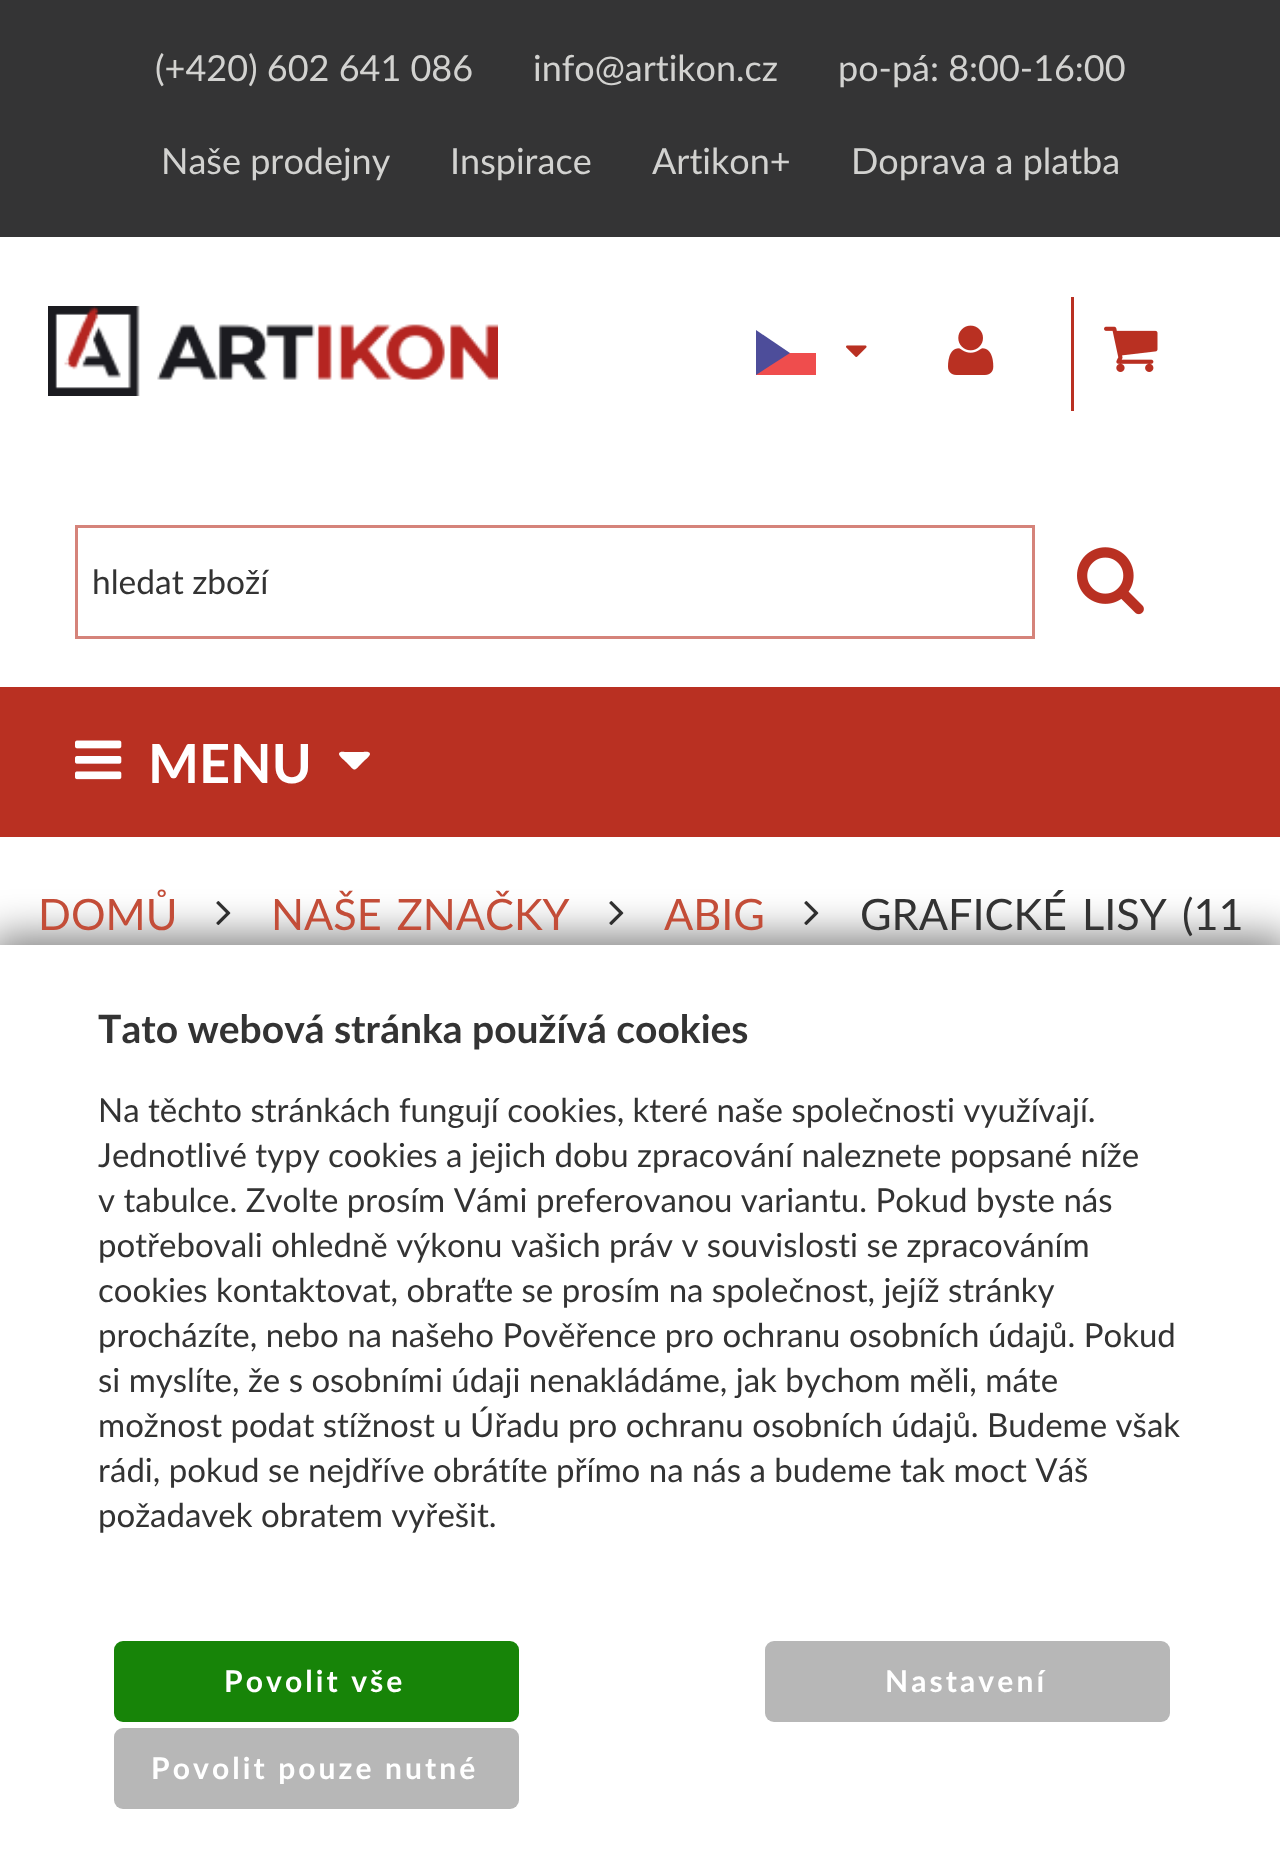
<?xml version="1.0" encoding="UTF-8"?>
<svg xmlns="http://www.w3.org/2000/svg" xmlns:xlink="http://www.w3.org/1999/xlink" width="1280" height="1856">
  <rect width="100%" height="100%" fill="#ffffff" />
  <rect width="1280" height="237" fill="#343435" />
  <image x="48" y="306" width="450" height="90" xlink:href="image1.png" />
  <rect x="756" y="353" width="60" height="22" fill="#ef4d4d" />
  <path d="M 756 330 l 34 23 l -34 22 z" fill="#4d4d9a" fill-rule="evenodd" />
  <image x="846" y="345" width="21" height="12" xlink:href="image2.png" />
  <image x="948" y="325" width="46" height="50" xlink:href="image3.png" />
  <rect x="1071" y="297" width="3" height="114" fill="#b93022" />
  <image x="1104" y="326" width="54" height="46" xlink:href="image4.png" />
  <rect x="76.5" y="526.5" width="957" height="111" fill="none" stroke="#d5837a" stroke-width="3" />
  <image x="1077" y="547" width="67" height="68" xlink:href="image5.png" />
  <rect y="687" width="1280" height="150" fill="#b93022" />
  <image x="75" y="740" width="47" height="40" xlink:href="image6.png" />
  <path d="M 312 783 z m 58 -29 c 0 2 -6 7 -7 8 c -10 10 -7 10 -17 0 c -1 -1 -7 -6 -7 -8 c 0 -3 5 -2 6 -2 h 18 c 1 0 7 -1 7 2 z" fill="#ffffff" />
  <image x="216" y="901" width="15" height="24" xlink:href="image7.png" />
  <image x="609" y="901" width="15" height="24" xlink:href="image7.png" />
  <image x="804" y="901" width="15" height="24" xlink:href="image7.png" />
  <rect x="-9" y="936" width="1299" height="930" fill="#000000" fill-opacity="0.5" filter="blur(21px)" />
  <rect y="945" width="1280" height="911" fill="#ffffff" />
  <rect x="114" y="1641" width="405" height="81" rx="9" fill="#178408" />
  <rect x="114" y="1728" width="405" height="81" rx="9" fill="#b7b7b7" />
  <rect x="765" y="1641" width="405" height="81" rx="9" fill="#b7b7b7" />
  <text x="155" y="81" style="font-family: Lato; font-size: 36px; fill: #d2d2d0">(+420) 602 641 086</text>
  <text x="533" y="81" style="font-family: Lato; font-size: 36px; fill: #d2d2d0">info@artikon.cz</text>
  <text x="838" y="81" style="font-family: Lato; font-size: 36px; fill: #d2d2d0">po-pá: 8:00-16:00</text>
  <text x="161" y="174" style="font-family: Lato; font-size: 36px; fill: #d2d2d0">Naše prodejny</text>
  <text x="450" y="174" style="font-family: Lato; font-size: 36px; fill: #d2d2d0">Inspirace</text>
  <text x="652" y="174" style="font-family: Lato; font-size: 36px; fill: #d2d2d0">Artikon+</text>
  <text x="851" y="174" style="font-family: Lato; font-size: 36px; fill: #d2d2d0">Doprava a platba</text>
  <text x="92" y="594" style="font-family: Lato; font-size: 33.5px; fill: #333333">hledat zboží</text>
  <text x="148" y="783" style="font-family: Lato; font-size: 54px; font-weight: bold; fill: #ffffff">MENU</text>
  <text x="38" y="930" style="font-family: Lato; font-size: 43.25px; fill: #c34d38">DOMŮ</text>
  <text x="271" y="930" word-spacing="4" style="font-family: Lato; font-size: 43.25px; fill: #c34d38">NAŠE ZNAČKY</text>
  <text x="664" y="930" style="font-family: Lato; font-size: 43.25px; fill: #c34d38">ABIG</text>
  <text x="860" y="930" word-spacing="4" style="font-family: Lato; font-size: 43.25px; fill: #333333">GRAFICKÉ LISY</text>
  <text x="1182" y="930" style="font-family: Lato; font-size: 43.25px; fill: #333333">(11</text>
  <text x="98" y="1043" style="font-family: Lato; font-size: 39px; font-weight: bold; fill: #333333">Tato webová stránka používá cookies</text>
  <text x="98" y="1122" style="font-family: Lato; font-size: 33px; fill: #333333">Na těchto stránkách fungují cookies, které naše společnosti využívají.</text>
  <text x="98" y="1167" style="font-family: Lato; font-size: 33px; fill: #333333">Jednotlivé typy cookies a jejich dobu zpracování naleznete popsané níže</text>
  <text x="98" y="1212" style="font-family: Lato; font-size: 33px; fill: #333333">v tabulce. Zvolte prosím Vámi preferovanou variantu. Pokud byste nás</text>
  <text x="98" y="1257" style="font-family: Lato; font-size: 33px; fill: #333333">potřebovali ohledně výkonu vašich práv v souvislosti se zpracováním</text>
  <text x="98" y="1302" style="font-family: Lato; font-size: 33px; fill: #333333">cookies kontaktovat, obraťte se prosím na společnost, jejíž stránky</text>
  <text x="98" y="1347" style="font-family: Lato; font-size: 33px; fill: #333333">procházíte, nebo na našeho Pověřence pro ochranu osobních údajů. Pokud</text>
  <text x="98" y="1392" style="font-family: Lato; font-size: 33px; fill: #333333">si myslíte, že s osobními údaji nenakládáme, jak bychom měli, máte</text>
  <text x="98" y="1437" style="font-family: Lato; font-size: 33px; fill: #333333">možnost podat stížnost u Úřadu pro ochranu osobních údajů. Budeme však</text>
  <text x="98" y="1482" style="font-family: Lato; font-size: 33px; fill: #333333">rádi, pokud se nejdříve obrátíte přímo na nás a budeme tak moct Váš</text>
  <text x="98" y="1527" style="font-family: Lato; font-size: 33px; fill: #333333">požadavek obratem vyřešit.</text>
  <text x="224" y="1692" style="font-family: Lato; font-size: 30px; font-weight: bold; letter-spacing: 3.1px; fill: #ffffff">Povolit vše</text>
  <text x="151" y="1779" style="font-family: Lato; font-size: 30px; font-weight: bold; letter-spacing: 3.1px; fill: #ffffff">Povolit pouze nutné</text>
  <text x="885" y="1692" style="font-family: Lato; font-size: 30px; font-weight: bold; letter-spacing: 3.1px; fill: #ffffff">Nastavení</text>
</svg>
